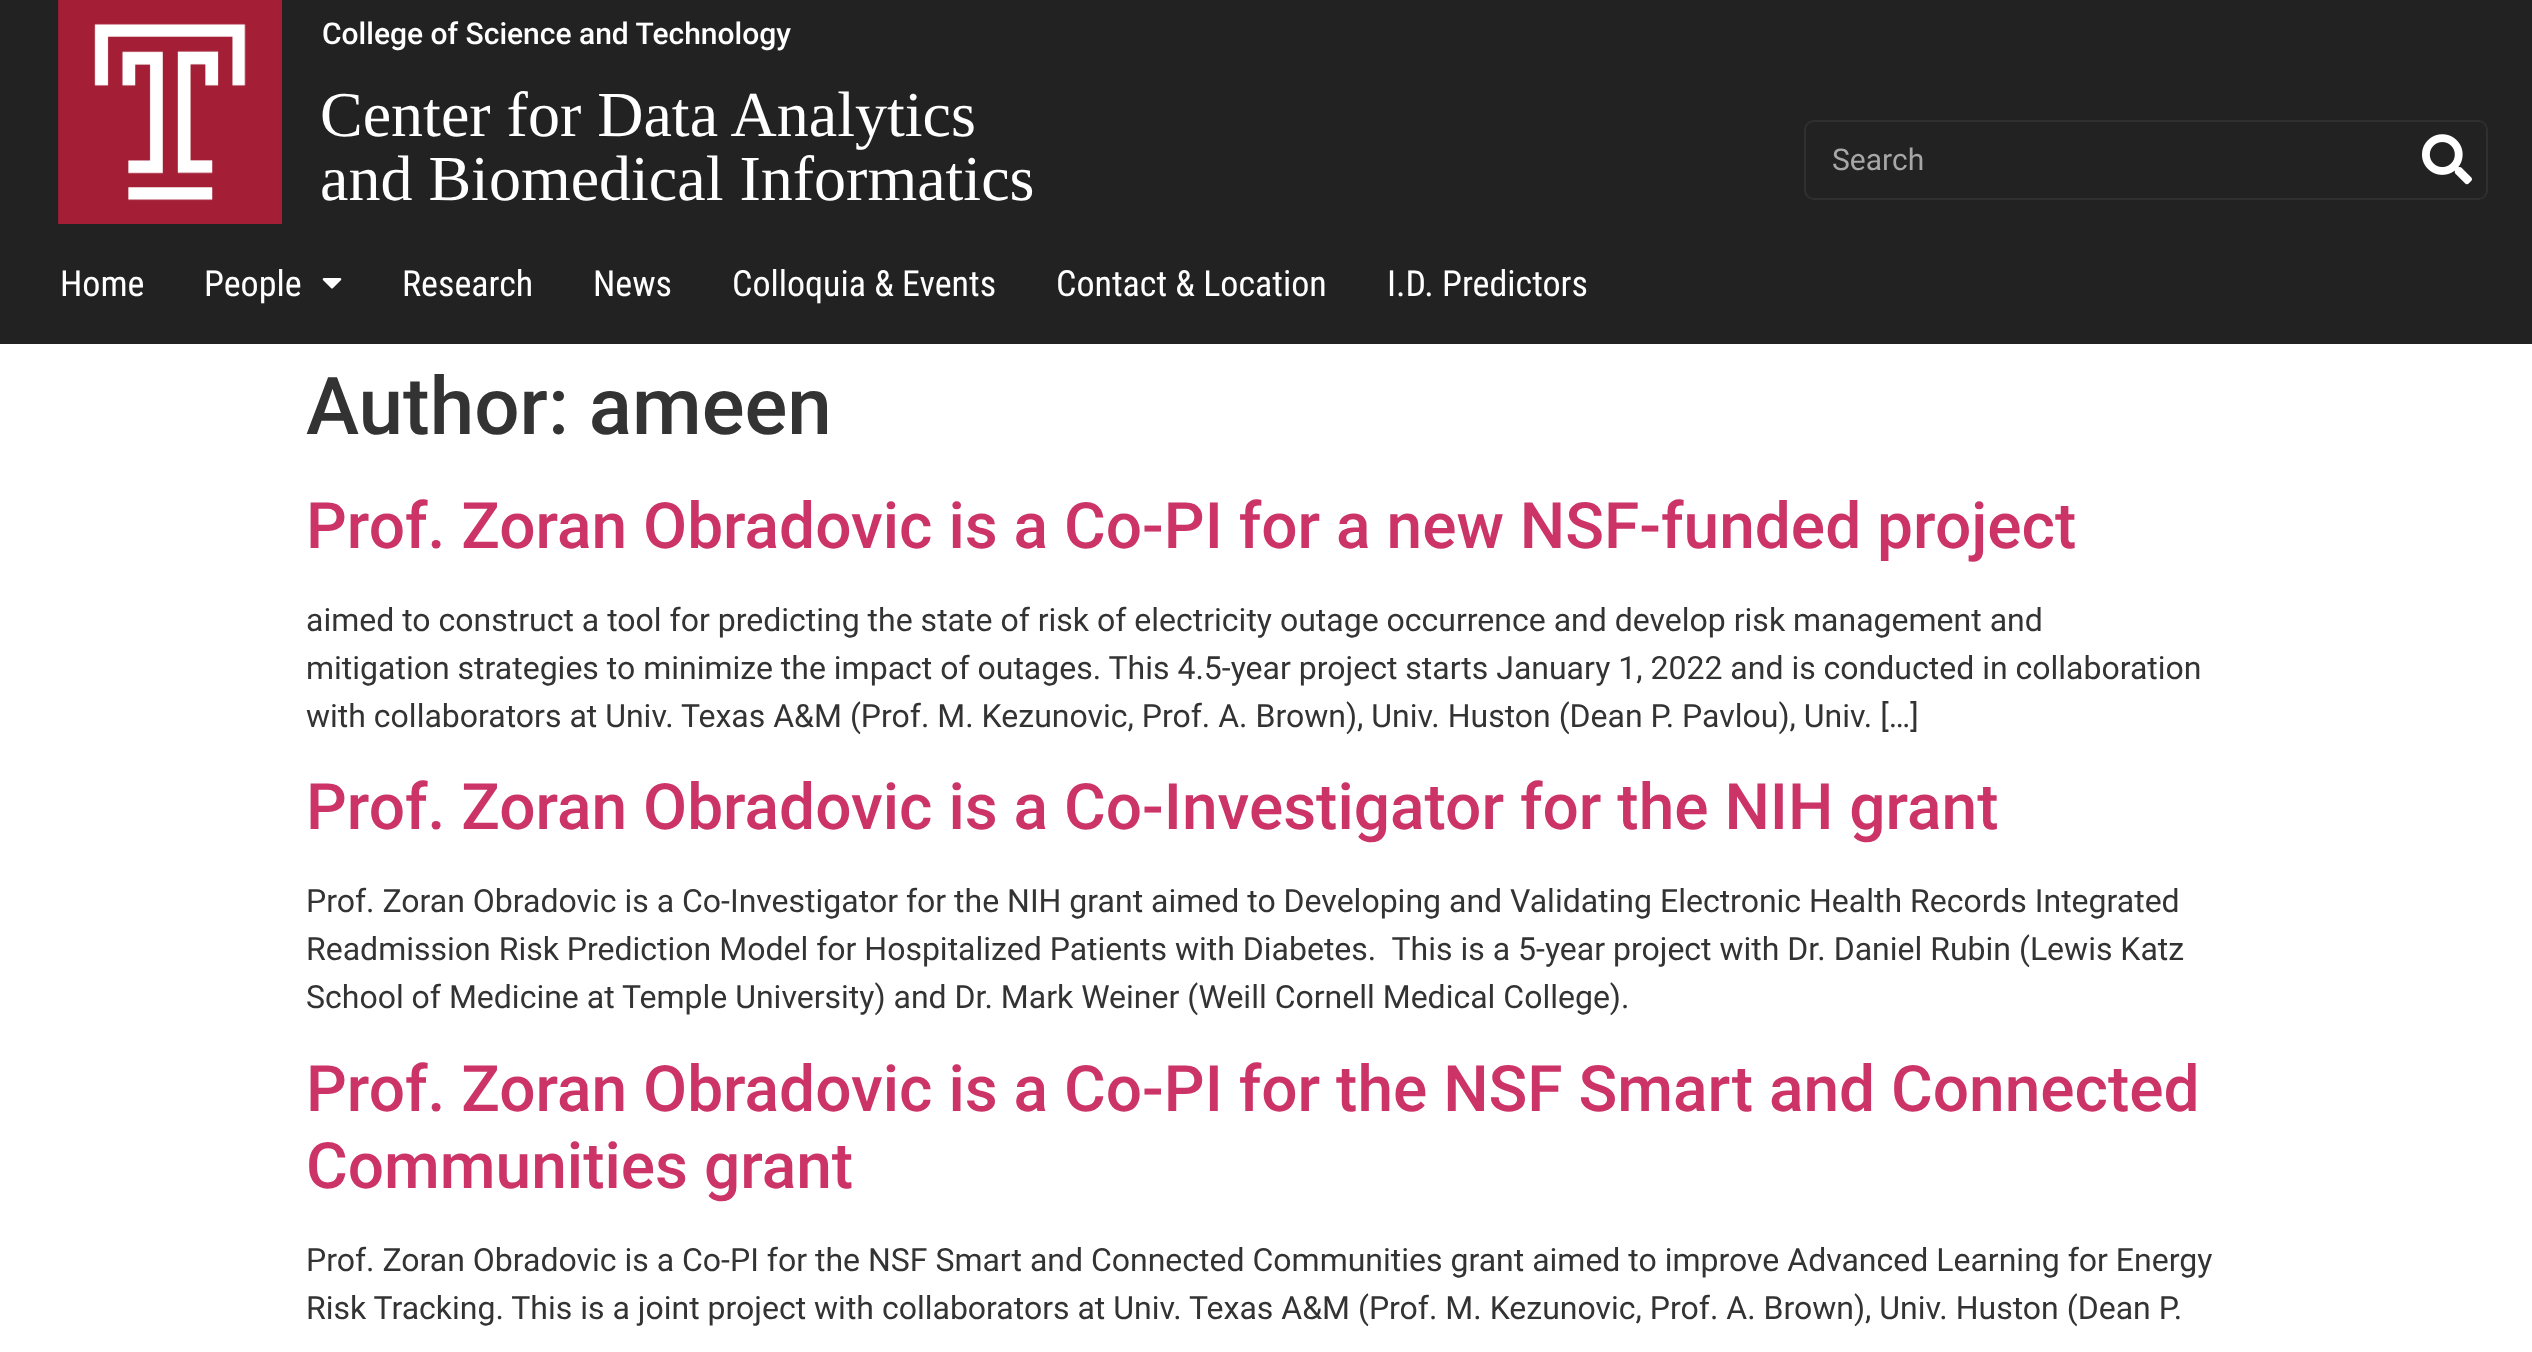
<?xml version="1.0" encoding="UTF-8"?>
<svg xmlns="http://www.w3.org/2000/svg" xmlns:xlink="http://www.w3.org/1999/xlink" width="2532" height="1352">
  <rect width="100%" height="100%" fill="#ffffff" />
  <rect width="2532" height="344" fill="#222222" />
  <image x="58" y="0" width="224" height="224" xlink:href="image1.png" />
  <rect x="1805" y="121" width="682" height="78" rx="9" fill="none" stroke="#303030" stroke-width="2" />
  <path d="M 2406 122 h 72 c 4.5 0 8 3.5 8 8 v 60 c 0 4.5 -3.5 8 -8 8 h -72 z" fill="#222222" />
  <image x="2422" y="134" width="50" height="51" xlink:href="image2.png" />
  <image x="322" y="278" width="20" height="11" xlink:href="image3.png" />
  <text x="322" y="44" style="font-family: Roboto; font-size: 30px; font-weight: 500; fill: #ffffff">College of Science and Technology</text>
  <text x="320" y="136" style="font-family: Liberation Serif; font-size: 64px; fill: #ffffff">Center for Data Analytics</text>
  <text x="320" y="200" style="font-family: Liberation Serif; font-size: 64px; fill: #ffffff">and Biomedical Informatics</text>
  <text x="1832" y="170" style="font-family: Roboto; font-size: 30px; fill: #a7a7a7">Search</text>
  <text x="60" y="296" style="font-family: Roboto Condensed; font-size: 36px; fill: #ffffff">Home</text>
  <text x="204" y="296" style="font-family: Roboto Condensed; font-size: 36px; fill: #ffffff">People</text>
  <text x="402" y="296" style="font-family: Roboto Condensed; font-size: 36px; fill: #ffffff">Research</text>
  <text x="593" y="296" style="font-family: Roboto Condensed; font-size: 36px; fill: #ffffff">News</text>
  <text x="732" y="296" style="font-family: Roboto Condensed; font-size: 36px; fill: #ffffff">Colloquia &amp; Events</text>
  <text x="1056" y="296" style="font-family: Roboto Condensed; font-size: 36px; fill: #ffffff">Contact &amp; Location</text>
  <text x="1387" y="296" style="font-family: Roboto Condensed; font-size: 36px; fill: #ffffff">I.D. Predictors</text>
  <text x="306" y="434" style="font-family: Roboto; font-size: 80px; font-weight: 500; fill: #333333">Author: ameen</text>
  <text x="306" y="548" style="font-family: Roboto; font-size: 64px; font-weight: 500; fill: #cc3366">Prof. Zoran Obradovic is a Co-PI for a new NSF-funded project</text>
  <text x="306" y="631" style="font-family: Roboto; font-size: 32px; fill: #333333">aimed to construct a tool for predicting the state of risk of electricity outage occurrence and develop risk management and</text>
  <text x="306" y="679" style="font-family: Roboto; font-size: 32px; fill: #333333">mitigation strategies to minimize the impact of outages. This 4.5-year project starts January 1, 2022 and is conducted in collaboration</text>
  <text x="306" y="727" style="font-family: Roboto; font-size: 32px; fill: #333333">with collaborators at Univ. Texas A&amp;M (Prof. M. Kezunovic, Prof. A. Brown), Univ. Huston (Dean P. Pavlou), Univ. […]</text>
  <text x="306" y="829" style="font-family: Roboto; font-size: 64px; font-weight: 500; fill: #cc3366">Prof. Zoran Obradovic is a Co-Investigator for the NIH grant</text>
  <text x="306" y="912" style="font-family: Roboto; font-size: 32px; fill: #333333">Prof. Zoran Obradovic is a Co-Investigator for the NIH grant aimed to Developing and Validating Electronic Health Records Integrated</text>
  <text x="306" y="960" style="font-family: Roboto; font-size: 32px; fill: #333333" xml:space="preserve">Readmission Risk Prediction Model for Hospitalized Patients with Diabetes.  This is a 5-year project with Dr. Daniel Rubin (Lewis Katz</text>
  <text x="306" y="1008" style="font-family: Roboto; font-size: 32px; fill: #333333">School of Medicine at Temple University) and Dr. Mark Weiner (Weill Cornell Medical College).</text>
  <text x="306" y="1111" style="font-family: Roboto; font-size: 64px; font-weight: 500; fill: #cc3366">Prof. Zoran Obradovic is a Co-PI for the NSF Smart and Connected</text>
  <text x="306" y="1188" style="font-family: Roboto; font-size: 64px; font-weight: 500; fill: #cc3366">Communities grant</text>
  <text x="306" y="1271" style="font-family: Roboto; font-size: 32px; fill: #333333">Prof. Zoran Obradovic is a Co-PI for the NSF Smart and Connected Communities grant aimed to improve Advanced Learning for Energy</text>
  <text x="306" y="1319" style="font-family: Roboto; font-size: 32px; fill: #333333">Risk Tracking. This is a joint project with collaborators at Univ. Texas A&amp;M (Prof. M. Kezunovic, Prof. A. Brown), Univ. Huston (Dean P.</text>
</svg>
